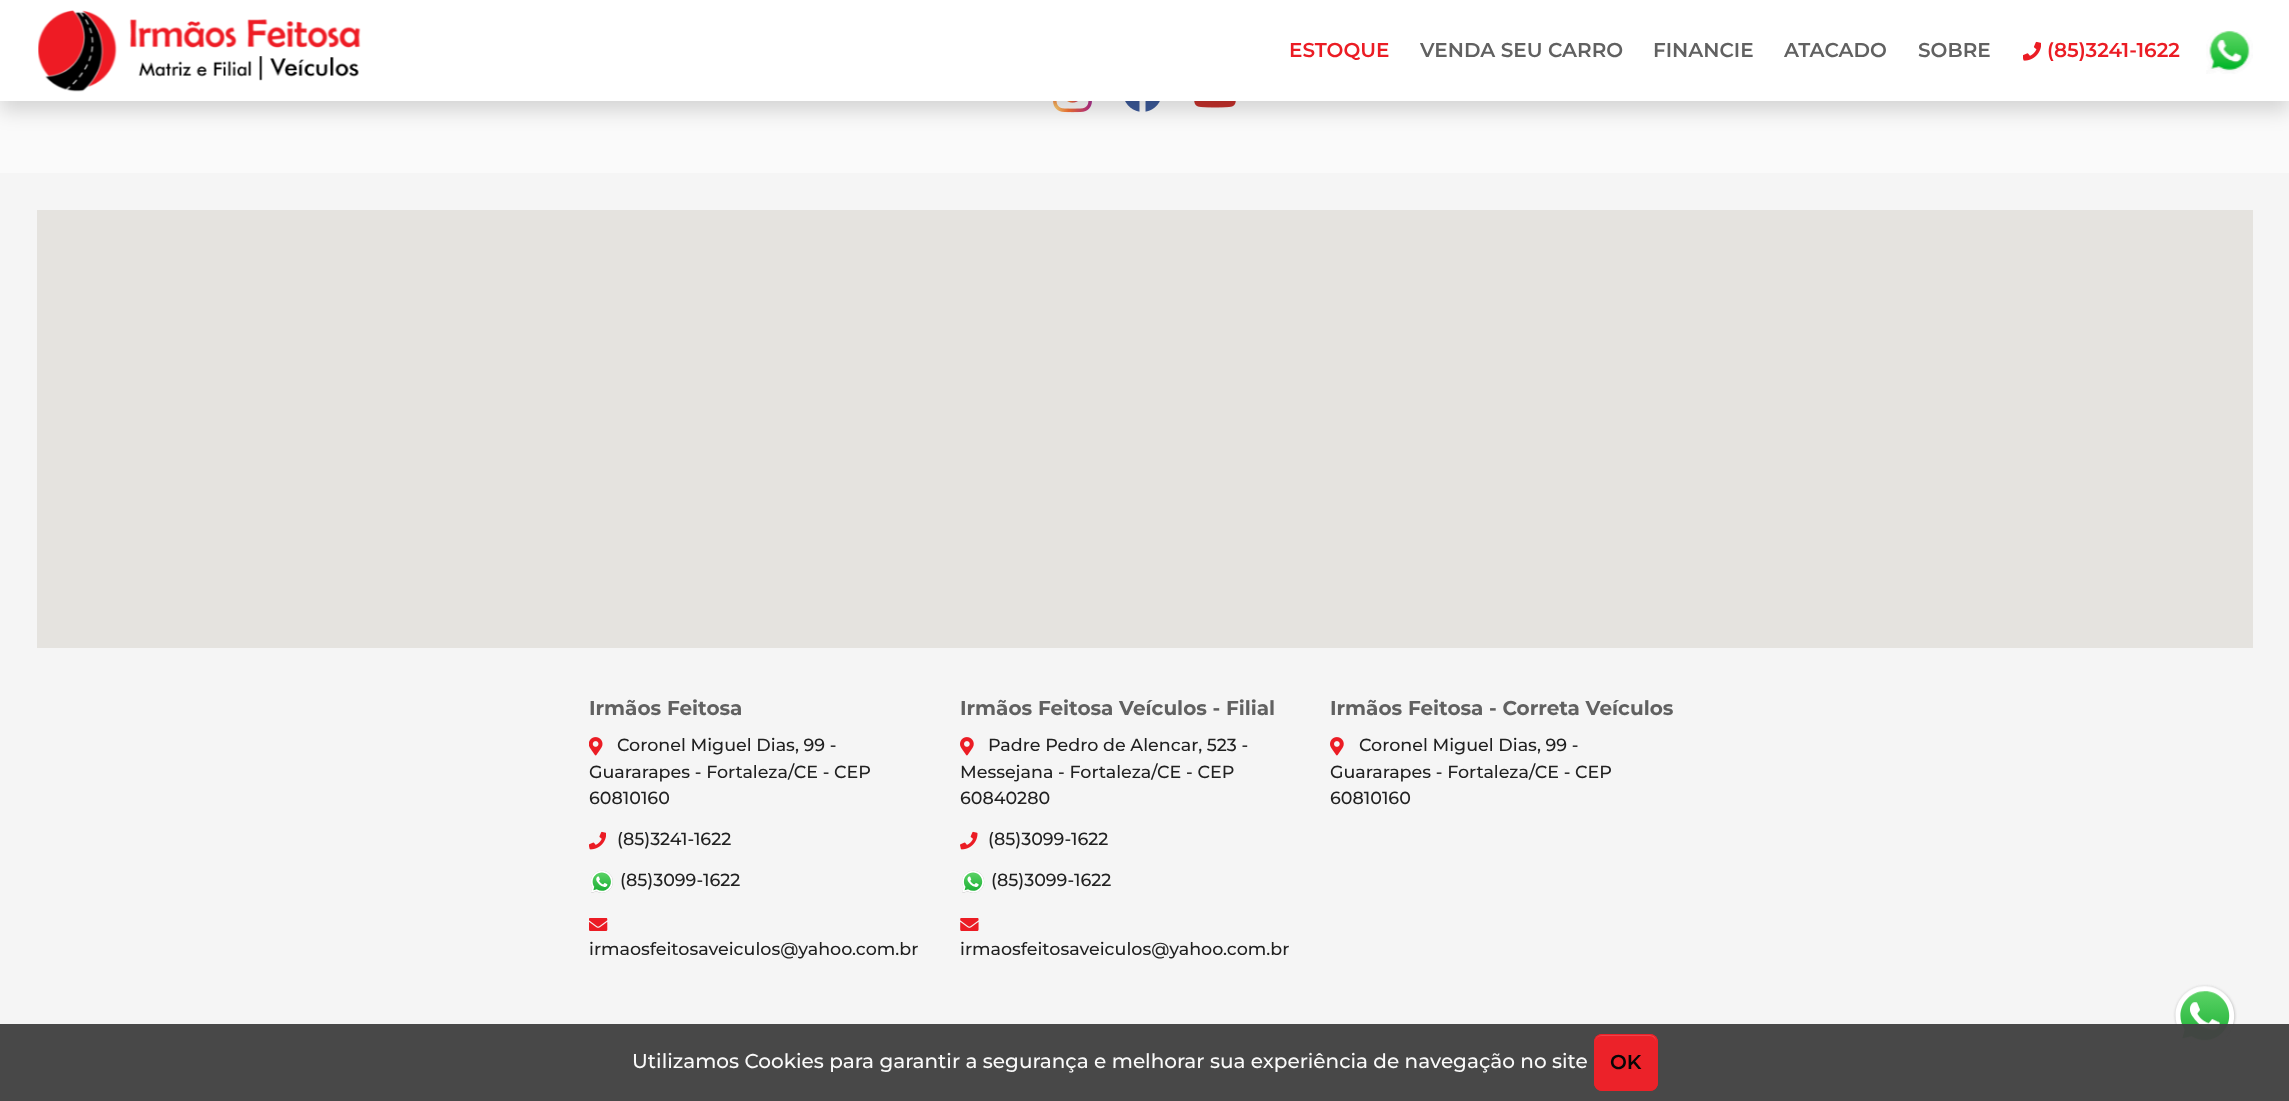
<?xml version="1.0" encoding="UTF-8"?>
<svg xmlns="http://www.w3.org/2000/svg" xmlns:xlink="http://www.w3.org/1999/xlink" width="2289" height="1101">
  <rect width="100%" height="100%" fill="#ffffff" />
  <rect y="101" width="2289" height="72" fill="#fafafa" />
  <image x="1053" y="101" width="39" height="12" xlink:href="image4.png" />
  <image x="1125" y="101" width="35" height="11" xlink:href="image5.png" />
  <image x="1194" y="101" width="42" height="7" xlink:href="image6.png" />
  <rect y="10" width="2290" height="101" fill="#000000" fill-opacity="0.15" filter="blur(10px)" />
  <rect width="2289" height="101" fill="#ffffff" />
  <image x="38" y="10" width="323" height="82" xlink:href="image1.png" />
  <image x="2023" y="41" width="18" height="20" xlink:href="image2.png" />
  <image x="2206" y="30" width="47" height="44" xlink:href="image3.png" />
  <rect y="173" width="2289" height="857" fill="#f5f5f5" />
  <rect x="37" y="210" width="2216" height="438" fill="#e5e3df" />
  <image x="589" y="737" width="14" height="19" xlink:href="image7.png" />
  <image x="589" y="831" width="17" height="19" xlink:href="image8.png" />
  <image x="591" y="870" width="22" height="23" xlink:href="image9.png" />
  <image x="589" y="918" width="19" height="13" xlink:href="image10.png" />
  <image x="960" y="737" width="14" height="19" xlink:href="image11.png" />
  <image x="960" y="831" width="18" height="19" xlink:href="image12.png" />
  <image x="962" y="870" width="23" height="23" xlink:href="image13.png" />
  <image x="960" y="918" width="19" height="13" xlink:href="image14.png" />
  <image x="1330" y="737" width="14" height="19" xlink:href="image11.png" />
  <image x="2173" y="984" width="64" height="64" xlink:href="image15.png" />
  <rect y="1024" width="2289" height="77" fill="#424242" fill-opacity="0.97" />
  <rect x="1594" y="1034" width="64" height="57" rx="8" fill="#ec2229" />
  <path d="M 1601 1036 h 49 c 3 0 6 3 6 6 c 0 -9 -8 -7 -14 -7 h -33 c -6 0 -14 -2 -14 7 c 0 -3 3 -6 6 -6 z" fill="#ef4349" />
  <rect x="1594.5" y="1034.5" width="63" height="56" rx="7.5" fill="none" stroke="#ec2229" />
  <text x="1289" y="57" style="font-family: Montserrat; font-size: 20px; font-weight: 600; fill: #eb1c24">ESTOQUE</text>
  <text x="1420" y="57" style="font-family: Montserrat; font-size: 20px; font-weight: 600; fill: #616161">VENDA SEU CARRO</text>
  <text x="1653" y="57" style="font-family: Montserrat; font-size: 20px; font-weight: 600; fill: #616161">FINANCIE</text>
  <text x="1784" y="57" style="font-family: Montserrat; font-size: 20px; font-weight: 600; fill: #616161">ATACADO</text>
  <text x="1918" y="57" style="font-family: Montserrat; font-size: 20px; font-weight: 600; fill: #616161">SOBRE</text>
  <text x="2047" y="57" style="font-family: Montserrat; font-size: 20px; font-weight: 600; fill: #eb1c24">(85)3241-1622</text>
  <text x="589" y="715" style="font-family: Montserrat; font-size: 20px; font-weight: bold; fill: #616161">Irmãos Feitosa</text>
  <text x="617" y="751" style="font-family: Montserrat; font-size: 17.5px; font-weight: 500; fill: #212121">Coronel Miguel Dias, 99 -</text>
  <text x="589" y="778" style="font-family: Montserrat; font-size: 17.5px; font-weight: 500; fill: #212121">Guararapes - Fortaleza/CE - CEP</text>
  <text x="589" y="804" style="font-family: Montserrat; font-size: 17.5px; font-weight: 500; fill: #212121">60810160</text>
  <text x="617" y="845" style="font-family: Montserrat; font-size: 17.5px; font-weight: 500; fill: #212121">(85)3241-1622</text>
  <text x="620" y="886" style="font-family: Montserrat; font-size: 17.5px; font-weight: 500; fill: #212121">(85)3099-1622</text>
  <text x="589" y="955" style="font-family: Montserrat; font-size: 17.5px; font-weight: 500; fill: #212121">irmaosfeitosaveiculos@yahoo.com.br</text>
  <text x="960" y="715" style="font-family: Montserrat; font-size: 20px; font-weight: bold; fill: #616161">Irmãos Feitosa Veículos - Filial</text>
  <text x="988" y="751" style="font-family: Montserrat; font-size: 17.5px; font-weight: 500; fill: #212121">Padre Pedro de Alencar, 523 -</text>
  <text x="960" y="778" style="font-family: Montserrat; font-size: 17.5px; font-weight: 500; fill: #212121">Messejana - Fortaleza/CE - CEP</text>
  <text x="960" y="804" style="font-family: Montserrat; font-size: 17.5px; font-weight: 500; fill: #212121">60840280</text>
  <text x="988" y="845" style="font-family: Montserrat; font-size: 17.5px; font-weight: 500; fill: #212121">(85)3099-1622</text>
  <text x="991" y="886" style="font-family: Montserrat; font-size: 17.5px; font-weight: 500; fill: #212121">(85)3099-1622</text>
  <text x="960" y="955" style="font-family: Montserrat; font-size: 17.5px; font-weight: 500; fill: #212121">irmaosfeitosaveiculos@yahoo.com.br</text>
  <text x="1330" y="715" style="font-family: Montserrat; font-size: 20px; font-weight: bold; fill: #616161">Irmãos Feitosa - Correta Veículos</text>
  <text x="1359" y="751" style="font-family: Montserrat; font-size: 17.5px; font-weight: 500; fill: #212121">Coronel Miguel Dias, 99 -</text>
  <text x="1330" y="778" style="font-family: Montserrat; font-size: 17.5px; font-weight: 500; fill: #212121">Guararapes - Fortaleza/CE - CEP</text>
  <text x="1330" y="804" style="font-family: Montserrat; font-size: 17.5px; font-weight: 500; fill: #212121">60810160</text>
  <text x="632" y="1068" style="font-family: Montserrat; font-size: 20px; font-weight: 500; fill: #fafafa">Utilizamos Cookies para garantir a segurança e melhorar sua experiência de navegação no site</text>
  <text x="1610" y="1069" style="font-family: Montserrat; font-size: 20px; font-weight: 600; fill: #060606">OK</text>
</svg>
